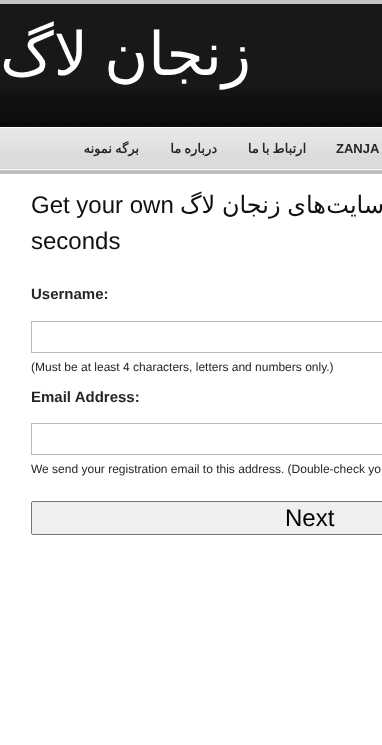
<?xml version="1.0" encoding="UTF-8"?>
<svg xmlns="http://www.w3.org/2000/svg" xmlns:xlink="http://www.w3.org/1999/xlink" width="382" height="745">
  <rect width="100%" height="100%" fill="#ffffff" />
  <image x="0" y="88" width="382" height="86" xlink:href="image1.png" />
  <rect y="4" width="382" height="84" fill="#181818" />
  <rect width="382" height="4" fill="#c5c5c5" />
  <rect x="31.5" y="321.5" width="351" height="31" fill="none" stroke="#bbbbbb" />
  <rect x="31.5" y="423.5" width="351" height="31" fill="none" stroke="#bbbbbb" />
  <rect x="31.5" y="501.5" width="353" height="33" rx="1.5" fill="#efefef" stroke="#767676" />
  <text x="88" y="75" style="font-family: DejaVu Sans; font-size: 60px; direction: rtl; fill: #ffffff">لاگ</text>
  <text x="251" y="75" style="font-family: DejaVu Sans; font-size: 60px; direction: rtl; fill: #ffffff">زنجان</text>
  <text x="139" y="153" word-spacing="-1" style="font-family: DejaVu Sans; font-size: 13px; font-weight: bold; direction: rtl; fill: #262626">برگه نمونه</text>
  <text x="217" y="153" word-spacing="-1" style="font-family: DejaVu Sans; font-size: 13px; font-weight: bold; direction: rtl; fill: #262626">درباره ما</text>
  <text x="306" y="153" word-spacing="-1" style="font-family: DejaVu Sans; font-size: 13px; font-weight: bold; direction: rtl; fill: #262626">ارتباط با ما</text>
  <text x="336" y="153" style="font-family: Liberation Sans; font-size: 13px; font-weight: bold; fill: #262626">ZANJA</text>
  <text x="31" y="213" style="font-family: Liberation Sans; font-size: 24px; fill: #111111">Get your own</text>
  <text x="326" y="213" word-spacing="-1" style="font-family: DejaVu Sans; font-size: 24px; direction: rtl; fill: #111111">های زنجان لاگ</text>
  <text x="384" y="213" style="font-family: DejaVu Sans; font-size: 24px; direction: rtl; fill: #111111">سایت</text>
  <text x="31" y="249" style="font-family: Liberation Sans; font-size: 24px; fill: #111111">seconds</text>
  <text x="31" y="299" style="font-family: Liberation Sans; font-size: 15px; font-weight: bold; fill: #262626">Username:</text>
  <text x="31" y="371" style="font-family: Liberation Sans; font-size: 12px; fill: #262626">(Must be at least 4 characters, letters and numbers only.)</text>
  <text x="31" y="402" style="font-family: Liberation Sans; font-size: 15px; font-weight: bold; fill: #262626">Email Address:</text>
  <text x="31" y="473" style="font-family: Liberation Sans; font-size: 12px; fill: #262626">We send your registration email to this address. (Double-check yo</text>
  <text x="285" y="526" style="font-family: Liberation Sans; font-size: 24px; fill: #000000">Next</text>
</svg>
